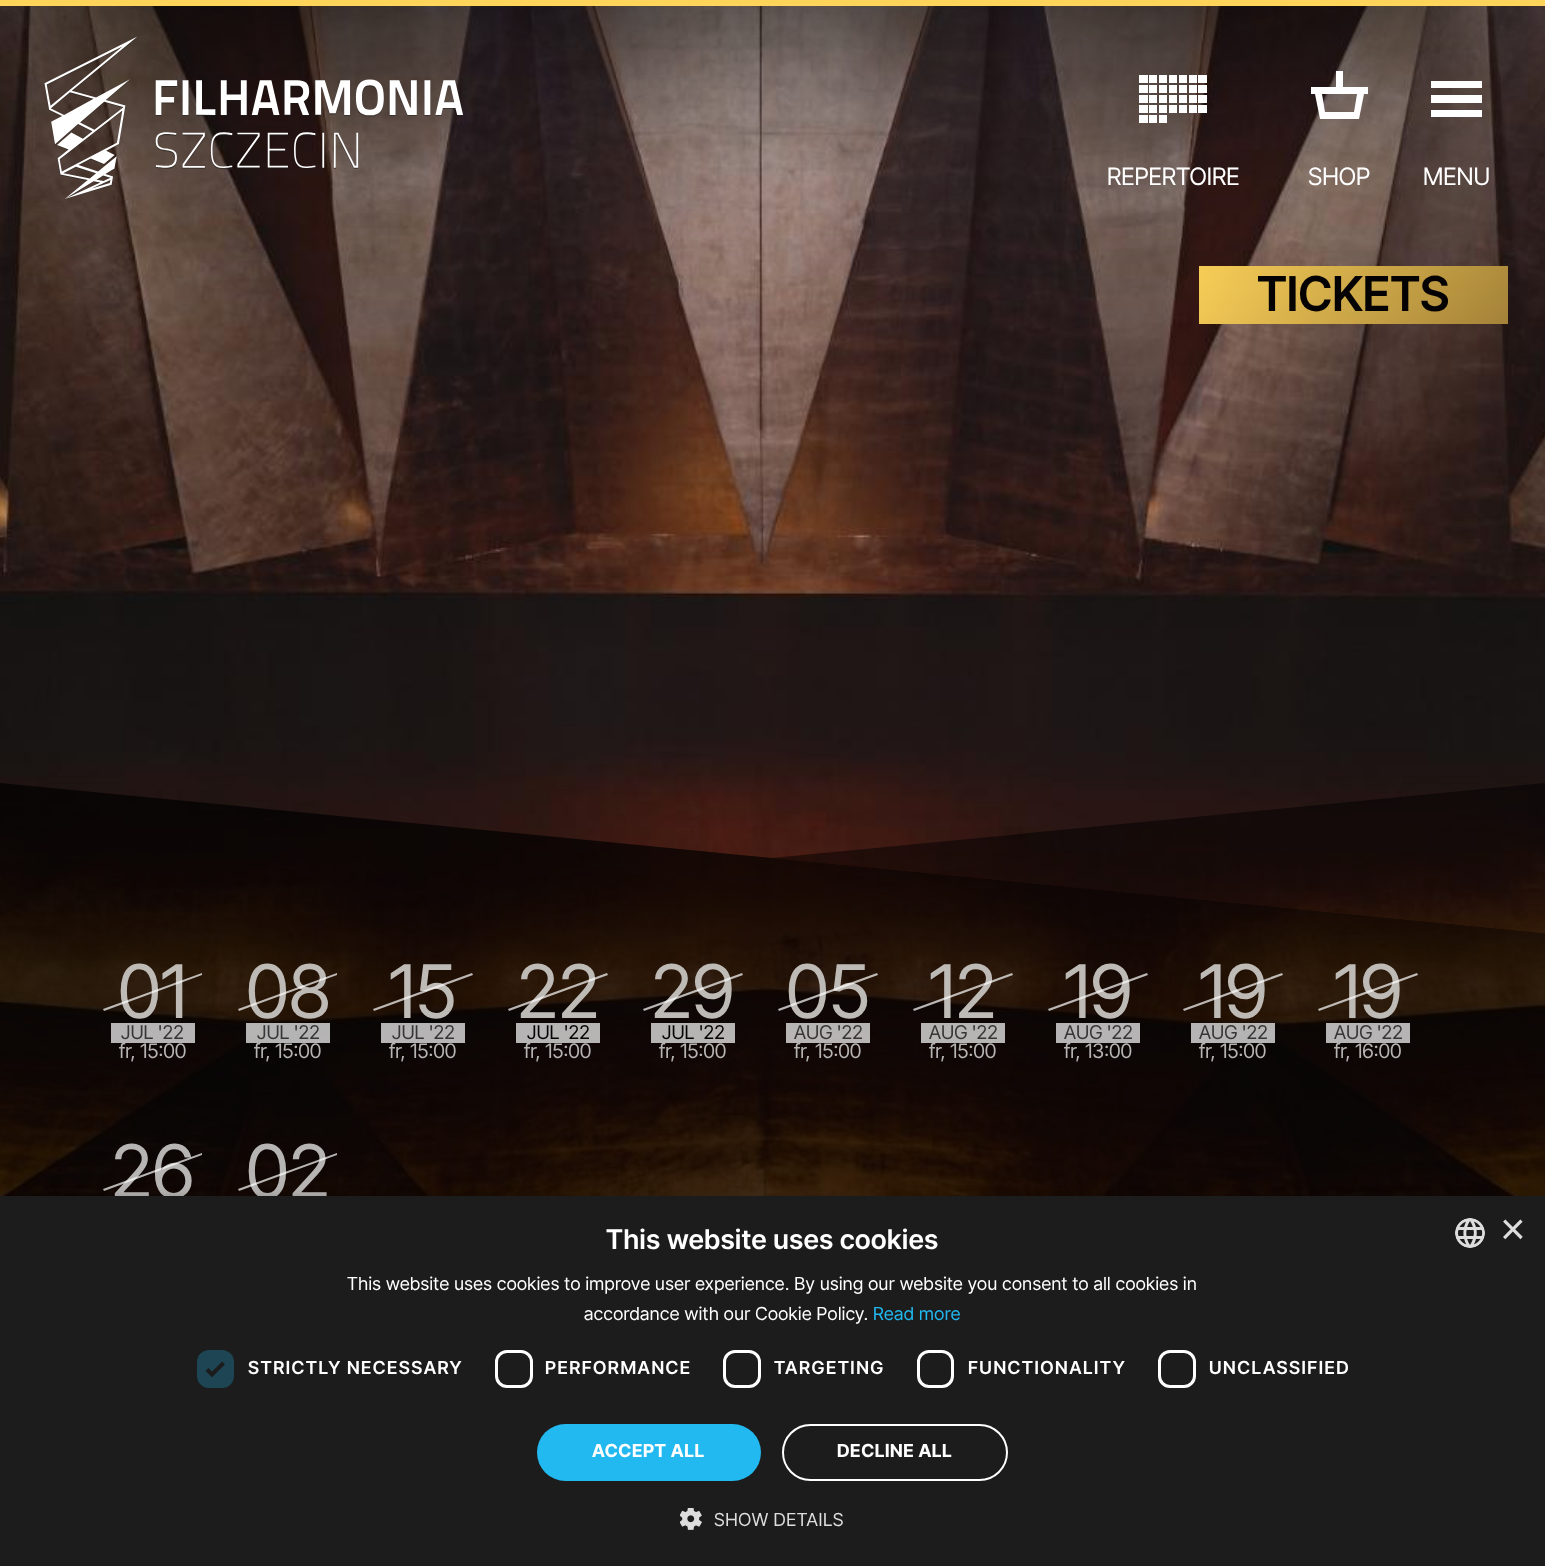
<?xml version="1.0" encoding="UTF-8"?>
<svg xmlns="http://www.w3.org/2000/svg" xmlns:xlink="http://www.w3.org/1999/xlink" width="1545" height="1566">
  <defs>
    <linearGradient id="g1" gradientUnits="userSpaceOnUse" x1="1261" y1="203" x2="1445" y2="387"><stop offset="0" stop-color="#ffd45a" /><stop offset="1" stop-color="#a58339" /></linearGradient>
  </defs>
  <rect width="100%" height="100%" fill="#ffffff" />
  <image x="0" y="6" width="1545" height="1190" xlink:href="image3.png" />
  <rect x="1199" y="266" width="309" height="58" fill="url(#g1)" />
  <rect y="-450" width="1545" height="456" fill="#000000" filter="blur(150px)" />
  <rect width="1545" height="6" fill="#ffd45a" />
  <image x="44" y="36" width="419" height="164" xlink:href="image1.png" />
  <image x="1139" y="75" width="68" height="48" xlink:href="image2.png" />
  <path d="M 1343 87 v -16 h -7 v 16 h -25 v 7 h 4 l 5 25 h 39 l 5 -25 h 4 v -7 z m -18 25 l -3 -18 h 35 l -3 18 z" fill="#ffffff" />
  <rect x="1431" y="81" width="51" height="7" fill="#ffffff" />
  <rect x="1431" y="95" width="51" height="8" fill="#ffffff" />
  <rect x="1431" y="110" width="51" height="7" fill="#ffffff" />
  <rect y="933" width="1545" height="263" fill="#000000" fill-opacity="0.7" />
  <path d="M 0 783 l 1545 150 h -1545 z" fill="#000000" fill-opacity="0.7" />
  <path d="M 1545 783 v 150 l -773 -75 z" fill="#000000" fill-opacity="0.5" />
  <rect x="111" y="1023" width="84" height="20" fill="#ffffff" fill-opacity="0.7" />
  <rect x="246" y="1023" width="84" height="20" fill="#ffffff" fill-opacity="0.7" />
  <rect x="381" y="1023" width="84" height="20" fill="#ffffff" fill-opacity="0.7" />
  <rect x="516" y="1023" width="84" height="20" fill="#ffffff" fill-opacity="0.7" />
  <rect x="651" y="1023" width="84" height="20" fill="#ffffff" fill-opacity="0.7" />
  <rect x="786" y="1023" width="84" height="20" fill="#ffffff" fill-opacity="0.7" />
  <rect x="921" y="1023" width="84" height="20" fill="#ffffff" fill-opacity="0.7" />
  <rect x="1056" y="1023" width="84" height="20" fill="#ffffff" fill-opacity="0.7" />
  <rect x="1191" y="1023" width="84" height="20" fill="#ffffff" fill-opacity="0.7" />
  <rect x="1326" y="1023" width="84" height="20" fill="#ffffff" fill-opacity="0.7" />
  <text x="1107" y="185" style="font-family: Inter Tight; font-size: 24px; fill: #ffffff">REPERTOIRE</text>
  <text x="1308" y="185" style="font-family: Inter Tight; font-size: 24px; fill: #ffffff">SHOP</text>
  <text x="1423" y="185" style="font-family: Inter Tight; font-size: 24px; fill: #ffffff">MENU</text>
  <text x="1257" y="311" style="font-family: Inter Tight; font-size: 48px; font-weight: 600; fill: #040202">TICKETS</text>
  <text x="118" y="1018" style="font-family: Inter Tight; font-size: 74px; fill: #bebab6">01</text>
  <path d="M 103 1009 l 99 -36 v 2 l -98 36 z" fill="#ffffff" fill-opacity="0.7" />
  <text x="121" y="1039" style="font-family: Inter Tight; font-size: 19px; fill: #373636">JUL '22</text>
  <text x="119" y="1058" style="font-family: Inter Tight; font-size: 20px; fill: #b7b5b4">fr, 15:00</text>
  <text x="246" y="1018" style="font-family: Inter Tight; font-size: 74px; fill: #bebab6">08</text>
  <path d="M 238 1009 l 99 -36 v 2 l -98 36 z" fill="#ffffff" fill-opacity="0.7" />
  <text x="257" y="1039" style="font-family: Inter Tight; font-size: 19px; fill: #373636">JUL '22</text>
  <text x="254" y="1058" style="font-family: Inter Tight; font-size: 20px; fill: #b7b5b4">fr, 15:00</text>
  <text x="389" y="1018" style="font-family: Inter Tight; font-size: 74px; fill: #bebab6">15</text>
  <path d="M 373 1009 l 99 -36 l 1 2 l -99 36 z" fill="#ffffff" fill-opacity="0.7" />
  <text x="392" y="1039" style="font-family: Inter Tight; font-size: 19px; fill: #373636">JUL '22</text>
  <text x="389" y="1058" style="font-family: Inter Tight; font-size: 20px; fill: #b7b5b4">fr, 15:00</text>
  <text x="517" y="1018" style="font-family: Inter Tight; font-size: 74px; fill: #bebab6">22</text>
  <path d="M 508 1009 l 99 -36 l 1 2 l -99 36 z" fill="#ffffff" fill-opacity="0.7" />
  <text x="527" y="1039" style="font-family: Inter Tight; font-size: 19px; fill: #040202">JUL '22</text>
  <text x="524" y="1058" style="font-family: Inter Tight; font-size: 20px; fill: #b7b5b4">fr, 15:00</text>
  <text x="651" y="1018" style="font-family: Inter Tight; font-size: 74px; fill: #bebab6">29</text>
  <path d="M 643 1009 l 99 -36 l 1 2 l -99 36 z" fill="#ffffff" fill-opacity="0.7" />
  <text x="662" y="1039" style="font-family: Inter Tight; font-size: 19px; fill: #040202">JUL '22</text>
  <text x="659" y="1058" style="font-family: Inter Tight; font-size: 20px; fill: #b7b5b4">fr, 15:00</text>
  <text x="786" y="1018" style="font-family: Inter Tight; font-size: 74px; fill: #bebab6">05</text>
  <path d="M 778 1009 l 99 -36 l 1 2 l -99 36 z" fill="#ffffff" fill-opacity="0.7" />
  <text x="794" y="1039" style="font-family: Inter Tight; font-size: 19px; fill: #373636">AUG '22</text>
  <text x="794" y="1058" style="font-family: Inter Tight; font-size: 20px; fill: #b7b5b4">fr, 15:00</text>
  <text x="929" y="1018" style="font-family: Inter Tight; font-size: 74px; fill: #bebab6">12</text>
  <path d="M 913 1009 l 99 -36 l 1 2 l -99 36 z" fill="#ffffff" fill-opacity="0.7" />
  <text x="929" y="1039" style="font-family: Inter Tight; font-size: 19px; fill: #373636">AUG '22</text>
  <text x="929" y="1058" style="font-family: Inter Tight; font-size: 20px; fill: #b7b5b4">fr, 15:00</text>
  <text x="1064" y="1018" style="font-family: Inter Tight; font-size: 74px; fill: #bebab6">19</text>
  <path d="M 1048 1009 l 99 -36 l 1 2 l -99 36 z" fill="#ffffff" fill-opacity="0.7" />
  <text x="1064" y="1039" style="font-family: Inter Tight; font-size: 19px; fill: #373636">AUG '22</text>
  <text x="1064" y="1058" style="font-family: Inter Tight; font-size: 20px; fill: #b7b5b4">fr, 13:00</text>
  <text x="1199" y="1018" style="font-family: Inter Tight; font-size: 74px; fill: #bebab6">19</text>
  <path d="M 1183 1009 l 99 -36 l 1 2 l -99 36 z" fill="#ffffff" fill-opacity="0.7" />
  <text x="1199" y="1039" style="font-family: Inter Tight; font-size: 19px; fill: #373636">AUG '22</text>
  <text x="1199" y="1058" style="font-family: Inter Tight; font-size: 20px; fill: #b7b5b4">fr, 15:00</text>
  <text x="1334" y="1018" style="font-family: Inter Tight; font-size: 74px; fill: #bebab6">19</text>
  <path d="M 1318 1009 l 99 -36 l 1 2 l -99 36 z" fill="#ffffff" fill-opacity="0.7" />
  <text x="1334" y="1039" style="font-family: Inter Tight; font-size: 19px; fill: #373636">AUG '22</text>
  <text x="1334" y="1058" style="font-family: Inter Tight; font-size: 20px; fill: #b7b5b4">fr, 16:00</text>
  <text x="111" y="1198" style="font-family: Inter Tight; font-size: 74px; fill: #b7b5b4">26</text>
  <path d="M 103 1189 l 99 -36 v 2 l -98 36 z" fill="#ffffff" fill-opacity="0.7" />
  <text x="246" y="1198" style="font-family: Inter Tight; font-size: 74px; fill: #b7b5b4">02</text>
  <path d="M 238 1189 l 99 -36 v 2 l -98 36 z" fill="#ffffff" fill-opacity="0.7" />
  <rect x="2" y="1199" width="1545" height="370" fill="#000000" fill-opacity="0.35" filter="blur(6px)" />
  <rect y="1196" width="1545" height="370" fill="#1c1c1c" />
  <text x="606" y="1249" style="font-family: Inter Tight; font-size: 27px; font-weight: 600; letter-spacing: 0.6px; fill: #ffffff">This website uses cookies</text>
  <image x="1455" y="1218" width="30" height="30" xlink:href="image4.png" />
  <text x="1500" y="1244" style="font-family: Liberation Sans; font-size: 44px; fill: #dddddd">×</text>
  <text x="347" y="1290" style="font-family: Inter Tight; font-size: 18px; letter-spacing: 0.45px; fill: #ffffff">This website uses cookies to improve user experience. By using our website you consent to all cookies in</text>
  <text x="584" y="1320" style="font-family: Inter Tight; font-size: 18px; letter-spacing: 0.45px; fill: #ffffff">accordance with our Cookie Policy.</text>
  <text x="873" y="1320" style="font-family: Inter Tight; font-size: 18px; letter-spacing: 0.45px; fill: #22b8f0">Read more</text>
  <rect x="197" y="1350" width="37" height="38" rx="12" fill="#1e4553" />
  <path d="M 207 1369.5 l 5 5 l 11.5 -11.5" fill="none" stroke="#1c1c1c" stroke-width="3.9" />
  <text x="248" y="1374" style="font-family: Inter Tight; font-size: 18px; font-weight: 600; letter-spacing: 1.5px; fill: #ffffff">STRICTLY NECESSARY</text>
  <rect x="496.5" y="1351.5" width="35" height="35" rx="10.5" fill="none" stroke="#ffffff" stroke-width="3" />
  <text x="545" y="1374" style="font-family: Inter Tight; font-size: 18px; font-weight: 600; letter-spacing: 1.5px; fill: #ffffff">PERFORMANCE</text>
  <rect x="724.5" y="1351.5" width="35" height="35" rx="10.5" fill="none" stroke="#ffffff" stroke-width="3" />
  <text x="774" y="1374" style="font-family: Inter Tight; font-size: 18px; font-weight: 600; letter-spacing: 1.5px; fill: #ffffff">TARGETING</text>
  <rect x="918.5" y="1351.5" width="34" height="35" rx="10.5" fill="none" stroke="#ffffff" stroke-width="3" />
  <text x="968" y="1374" style="font-family: Inter Tight; font-size: 18px; font-weight: 600; letter-spacing: 1.5px; fill: #ffffff">FUNCTIONALITY</text>
  <rect x="1159.5" y="1351.5" width="35" height="35" rx="10.5" fill="none" stroke="#ffffff" stroke-width="3" />
  <text x="1209" y="1374" style="font-family: Inter Tight; font-size: 18px; font-weight: 600; letter-spacing: 1.5px; fill: #ffffff">UNCLASSIFIED</text>
  <rect x="537" y="1424" width="224" height="57" rx="28.5" fill="#22b8f0" />
  <text x="592" y="1457" style="font-family: Inter Tight; font-size: 18px; font-weight: bold; letter-spacing: 0.6px; fill: #ffffff">ACCEPT ALL</text>
  <rect x="783" y="1425" width="224" height="55" rx="27.5" fill="none" stroke="#ffffff" stroke-width="2" />
  <text x="837" y="1457" style="font-family: Inter Tight; font-size: 18px; font-weight: bold; letter-spacing: 0.6px; fill: #ffffff">DECLINE ALL</text>
  <image x="680" y="1508" width="22" height="22" xlink:href="image5.png" />
  <text x="714" y="1526" style="font-family: Inter Tight; font-size: 18px; letter-spacing: 0.6px; fill: #dddddd">SHOW DETAILS</text>
</svg>
